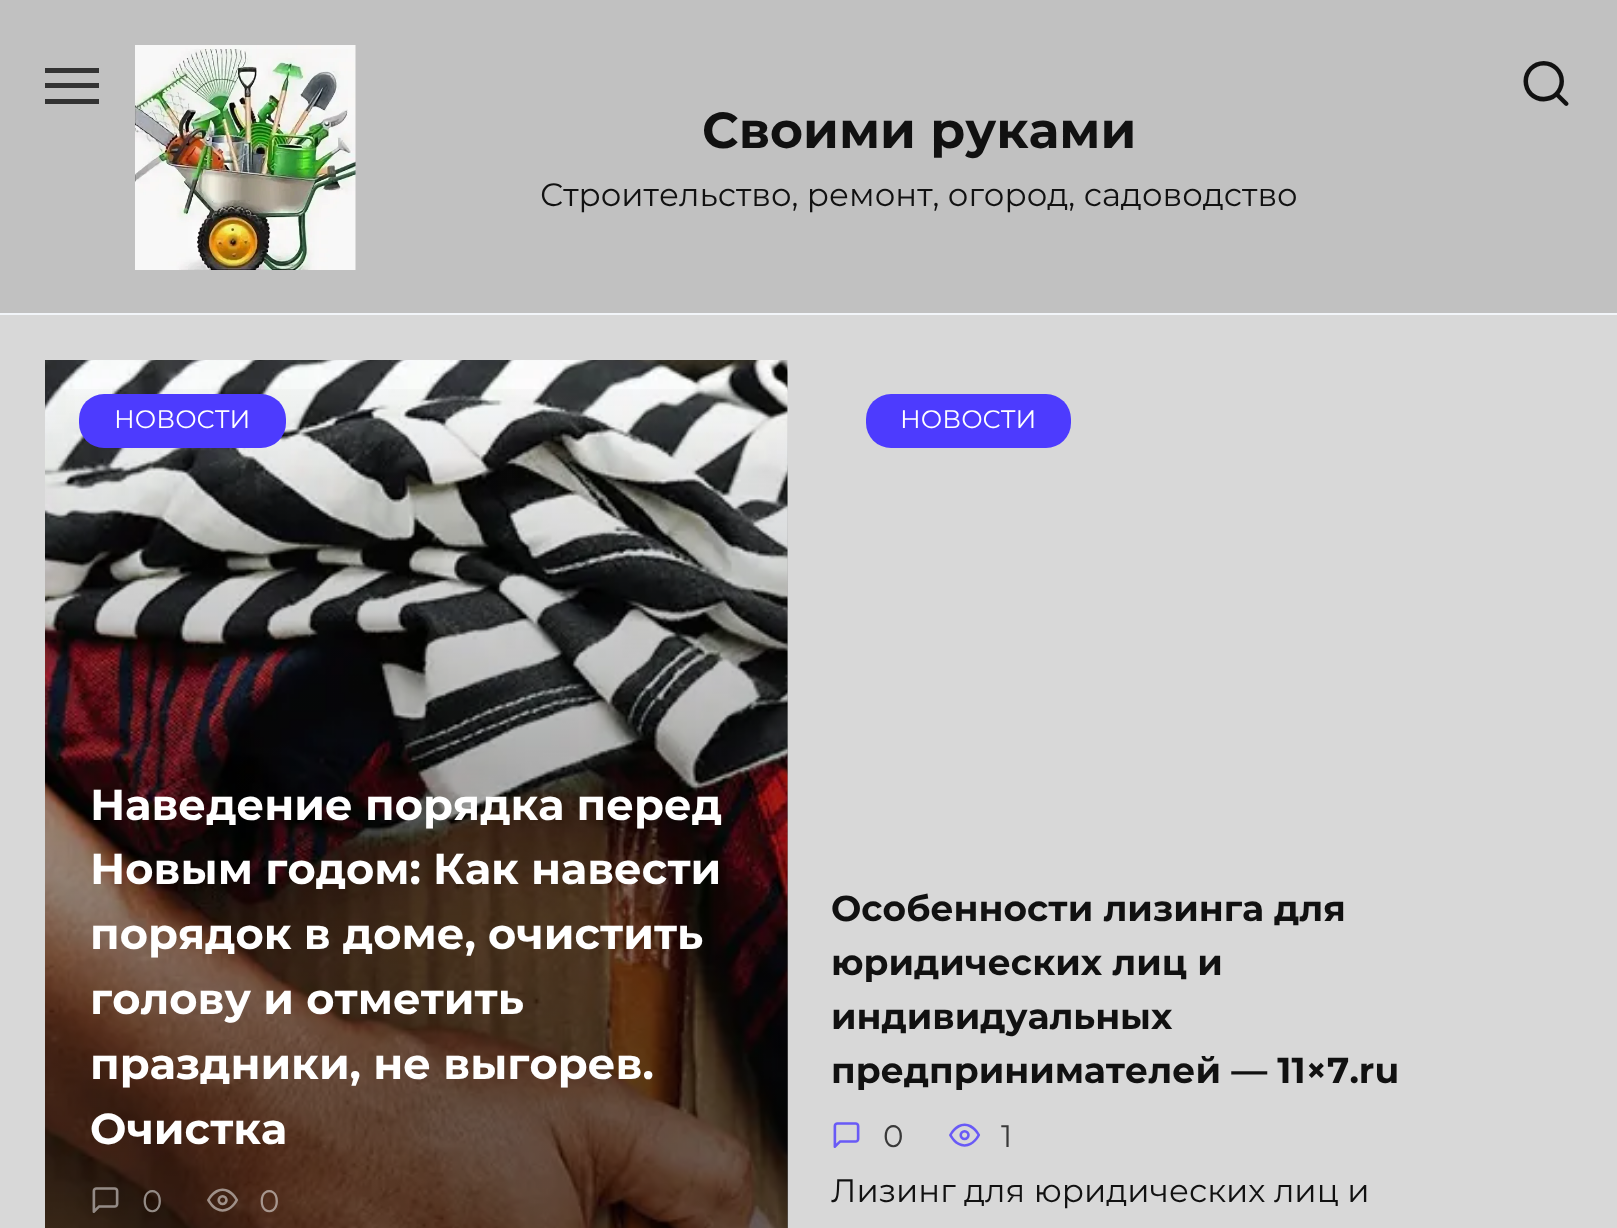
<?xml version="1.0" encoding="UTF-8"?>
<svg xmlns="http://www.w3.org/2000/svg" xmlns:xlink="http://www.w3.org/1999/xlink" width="1617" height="1228">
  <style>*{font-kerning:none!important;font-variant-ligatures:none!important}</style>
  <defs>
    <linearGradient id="g1" gradientUnits="userSpaceOnUse" x1="416" y1="360" x2="416" y2="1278"><stop offset="0" stop-color="#000000" stop-opacity="0" /><stop offset="0.8" stop-color="#000000" stop-opacity="0.55" /></linearGradient>
  </defs>
  <rect width="100%" height="100%" fill="#c1c1c1" />
  <rect y="313" width="1617" height="2" fill="#f2f5f9" />
  <rect x="45" y="68" width="54" height="5" fill="#333333" />
  <rect x="45" y="83" width="54" height="5" fill="#333333" />
  <rect x="45" y="99" width="54" height="5" fill="#333333" />
  <image x="135" y="45" width="221" height="225" xlink:href="image1.png" />
  <rect y="315" width="1617" height="913" fill="#d8d8d8" />
  <image x="45" y="360" width="743" height="868" xlink:href="image2.png" />
  <rect x="45" y="389" width="743" height="839" fill="url(#g1)" />
  <rect x="79" y="394" width="207" height="54" rx="25" fill="#4d3bfe" />
  <rect x="866" y="394" width="205" height="54" rx="25" fill="#4d3bfe" />
  <text x="1519" y="106" style="font-family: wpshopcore; font-size: 54px; fill: #111111">🔍</text>
  <text x="702" y="148" style="font-family: Montserrat; font-size: 50.5px; font-weight: bold; fill: #111111">Своими руками</text>
  <text x="540" y="206" style="font-family: Montserrat; font-size: 32.4px; fill: #111111">Строительство, ремонт, огород, садоводство</text>
  <text x="114" y="428" style="font-family: Montserrat; font-size: 25.25px; fill: #ffffff">НОВОСТИ</text>
  <text x="90" y="820" style="font-family: Montserrat; font-size: 43.25px; font-weight: bold; fill: #ffffff">Наведение порядка перед</text>
  <text x="90" y="884" style="font-family: Montserrat; font-size: 43.25px; font-weight: bold; fill: #ffffff">Новым годом: Как навести</text>
  <text x="90" y="949" style="font-family: Montserrat; font-size: 43.25px; font-weight: bold; fill: #ffffff">порядок в доме, очистить</text>
  <text x="90" y="1014" style="font-family: Montserrat; font-size: 43.25px; font-weight: bold; fill: #ffffff">голову и отметить</text>
  <text x="90" y="1079" style="font-family: Montserrat; font-size: 43.25px; font-weight: bold; fill: #ffffff">праздники, не выгорев.</text>
  <text x="90" y="1144" style="font-family: Montserrat; font-size: 43.25px; font-weight: bold; fill: #ffffff">Очистка</text>
  <text x="90" y="1213" style="font-family: wpshopcore; font-size: 31px; fill: #948b86">💬</text>
  <text x="142" y="1212" style="font-family: Montserrat; font-size: 31px; fill: #948b86">0</text>
  <text x="207" y="1213" style="font-family: wpshopcore; font-size: 31px; fill: #9f9089">👀</text>
  <text x="259" y="1212" style="font-family: Montserrat; font-size: 31px; fill: #a8978f">0</text>
  <text x="900" y="428" style="font-family: Montserrat; font-size: 25.25px; fill: #ffffff">НОВОСТИ</text>
  <text x="831" y="921" style="font-family: Montserrat; font-size: 36px; font-weight: bold; fill: #111111">Особенности лизинга для</text>
  <text x="831" y="975" style="font-family: Montserrat; font-size: 36px; font-weight: bold; fill: #111111">юридических лиц и</text>
  <text x="831" y="1029" style="font-family: Montserrat; font-size: 36px; font-weight: bold; fill: #111111">индивидуальных</text>
  <text x="831" y="1083" style="font-family: Montserrat; font-size: 36px; font-weight: bold; fill: #111111">предпринимателей — 11×7.ru</text>
  <text x="831" y="1148" style="font-family: wpshopcore; font-size: 31px; fill: #695af6">💬</text>
  <text x="883" y="1147" style="font-family: Montserrat; font-size: 31px; fill: #393939">0</text>
  <text x="949" y="1148" style="font-family: wpshopcore; font-size: 31px; fill: #695af6">👀</text>
  <text x="1001" y="1147" style="font-family: Montserrat; font-size: 31px; fill: #393939">1</text>
  <text x="831" y="1202" style="font-family: Montserrat; font-size: 32.4px; fill: #111111">Лизинг для юридических лиц и</text>
</svg>
